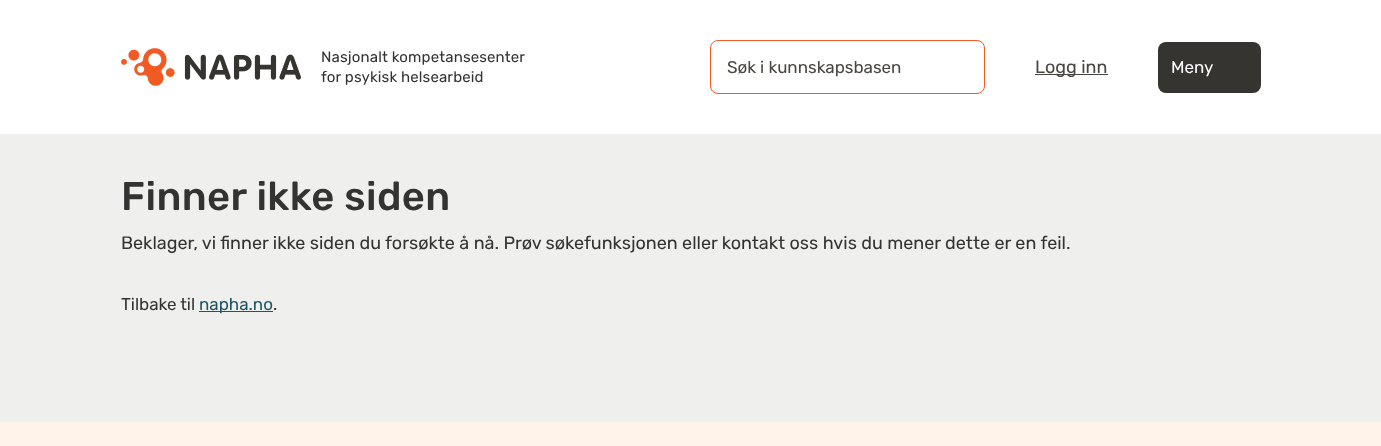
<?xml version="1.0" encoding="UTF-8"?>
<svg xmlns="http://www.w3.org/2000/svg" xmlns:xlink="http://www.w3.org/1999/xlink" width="1381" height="446">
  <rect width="100%" height="100%" fill="#efefee" />
  <rect width="1381" height="134" fill="#ffffff" />
  <image x="121" y="48" width="180" height="38" xlink:href="image1.png" />
  <rect x="710.5" y="40.5" width="274" height="53" rx="7.5" fill="none" stroke="#f15a22" />
  <rect x="1035" y="74" width="73" height="1" fill="#484641" />
  <rect x="1158" y="42" width="103" height="51" rx="8" fill="#353430" />
  <rect x="199" y="311" width="74" height="1" fill="#1d5561" />
  <rect y="422" width="1381" height="24" fill="#fff3ea" />
  <text x="321" y="62" style="font-family: Rubik; font-size: 15px; letter-spacing: 0.15px; fill: #333333">Nasjonalt kompetansesenter</text>
  <text x="321" y="82" style="font-family: Rubik; font-size: 15px; letter-spacing: 0.15px; fill: #333333">for psykisk helsearbeid</text>
  <text x="727" y="73" style="font-family: Rubik; font-size: 17px; fill: #484641">Søk i kunnskapsbasen</text>
  <text x="1035" y="73" style="font-family: Rubik; font-size: 18px; fill: #484641">Logg inn</text>
  <text x="1171" y="73" style="font-family: Rubik; font-size: 17px; fill: #ffffff">Meny</text>
  <text x="121" y="210" style="font-family: Rubik; font-size: 40px; font-weight: 500; letter-spacing: 0.4px; fill: #333333">Finner ikke siden</text>
  <text x="121" y="249" style="font-family: Rubik; font-size: 18px; fill: #333333">Beklager, vi finner ikke siden du forsøkte å nå. Prøv søkefunksjonen eller kontakt oss hvis du mener dette er en feil.</text>
  <text x="121" y="310" style="font-family: Rubik; font-size: 17px; fill: #333333">Tilbake til</text>
  <text x="199" y="310" style="font-family: Rubik; font-size: 17px; fill: #1d5561">napha.no</text>
  <text x="273" y="310" style="font-family: Rubik; font-size: 17px; fill: #333333">.</text>
</svg>
